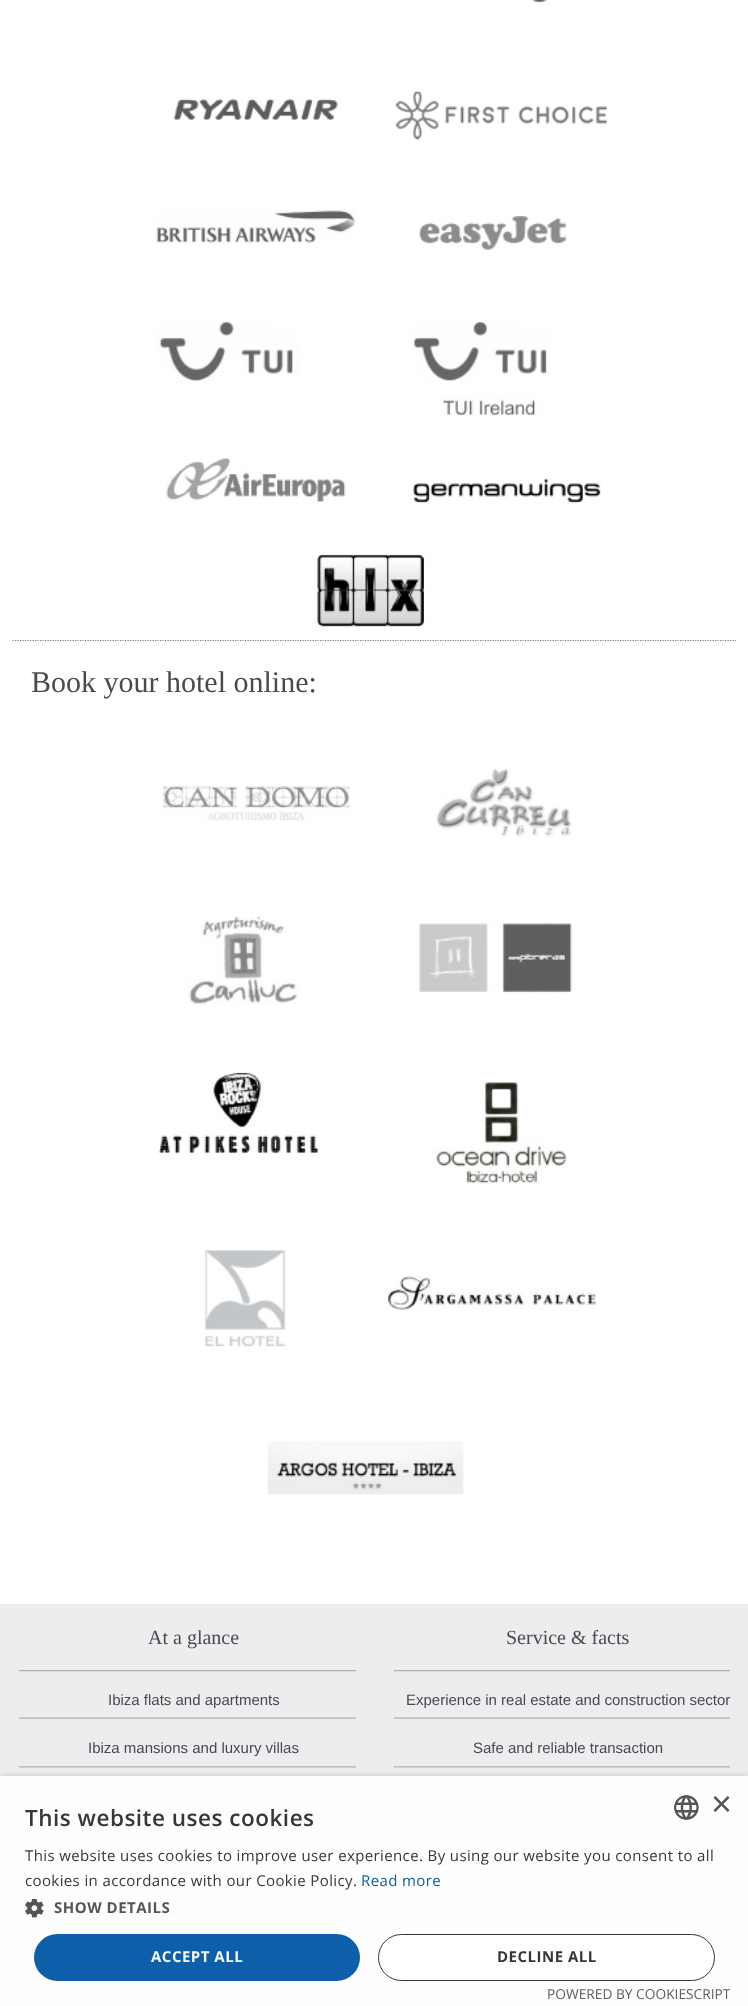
<?xml version="1.0" encoding="UTF-8"?>
<svg xmlns="http://www.w3.org/2000/svg" xmlns:xlink="http://www.w3.org/1999/xlink" width="748" height="2006">
  <defs>
    <clipPath id="clip1"><path d="M 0 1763 h 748 v 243 h -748 z m 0 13 h 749 v 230 h -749 z" clip-rule="evenodd" /></clipPath>
  </defs>
  <rect width="100%" height="100%" fill="#ededef" />
  <rect width="748" height="1604" fill="#ffffff" />
  <image x="532" y="0" width="15" height="3" xlink:href="image1.png" />
  <image x="173" y="98" width="165" height="23" xlink:href="image2.png" />
  <image x="395" y="91" width="212" height="49" xlink:href="image3.png" />
  <image x="156" y="210" width="199" height="33" xlink:href="image4.png" />
  <image x="419" y="215" width="148" height="36" xlink:href="image5.png" />
  <image x="154" y="322" width="146" height="62" xlink:href="image6.png" />
  <image x="412" y="322" width="138" height="94" xlink:href="image7.png" />
  <image x="166" y="457" width="180" height="45" xlink:href="image8.png" />
  <image x="413" y="478" width="188" height="26" xlink:href="image9.png" />
  <path d="M 12.5 640.5 h 723.5" fill="none" stroke="#808080" stroke-width="1.2" stroke-dasharray="1.25 1.25" />
  <image x="250" y="554" width="249" height="86" xlink:href="image10.png" />
  <image x="162" y="785" width="189" height="36" xlink:href="image11.png" />
  <image x="436" y="768" width="136" height="69" xlink:href="image12.png" />
  <image x="187" y="916" width="111" height="89" xlink:href="image13.png" />
  <image x="419" y="923" width="153" height="70" xlink:href="image14.png" />
  <image x="158" y="1072" width="160" height="82" xlink:href="image15.png" />
  <image x="434" y="1079" width="134" height="106" xlink:href="image16.png" />
  <image x="204" y="1250" width="82" height="97" xlink:href="image17.png" />
  <image x="387" y="1276" width="210" height="34" xlink:href="image18.png" />
  <image x="267" y="1441" width="197" height="54" xlink:href="image19.png" />
  <image x="18" y="1670" width="339" height="2" xlink:href="image20.png" />
  <image x="18" y="1717" width="339" height="2" xlink:href="image21.png" />
  <image x="18" y="1766" width="339" height="2" xlink:href="image22.png" />
  <image x="18" y="1815" width="339" height="2" xlink:href="image20.png" />
  <image x="18" y="1863" width="339" height="2" xlink:href="image23.png" />
  <image x="18" y="1912" width="339" height="2" xlink:href="image21.png" />
  <image x="18" y="1960" width="339" height="2" xlink:href="image20.png" />
  <image x="393" y="1670" width="337" height="2" xlink:href="image24.png" />
  <image x="393" y="1717" width="337" height="2" xlink:href="image25.png" />
  <image x="393" y="1766" width="337" height="2" xlink:href="image26.png" />
  <image x="393" y="1815" width="337" height="2" xlink:href="image24.png" />
  <image x="393" y="1863" width="337" height="2" xlink:href="image27.png" />
  <image x="393" y="1912" width="337" height="2" xlink:href="image25.png" />
  <image x="393" y="1960" width="337" height="2" xlink:href="image24.png" />
  <g clip-path="url(#clip1)">
    <rect x="1" y="1779" width="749" height="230" fill="#0c0c0c" fill-opacity="0.35" filter="blur(5px)" />
  </g>
  <rect y="1776" width="748" height="230" fill="#ffffff" fill-opacity="0.95" />
  <image x="674" y="1795" width="25" height="25" xlink:href="image28.png" />
  <image x="25" y="1899" width="19" height="19" xlink:href="image29.png" />
  <rect x="34" y="1934" width="326" height="47" rx="23.5" fill="#0056a4" fill-opacity="0.95" />
  <rect x="378.5" y="1934.5" width="336" height="46" rx="23" fill="#ffffff" fill-opacity="0.95" stroke="#373737" />
  <text x="31" y="692" style="font-family: Liberation Serif; font-size: 30px; fill: #4a494e">Book your hotel online:</text>
  <text x="148" y="1644" style="font-family: Liberation Serif; font-size: 20px; fill: #4a494e">At a glance</text>
  <text x="108" y="1705" style="font-family: Liberation Sans; font-size: 15px; fill: #4a494e">Ibiza flats and apartments</text>
  <text x="88" y="1753" style="font-family: Liberation Sans; font-size: 15px; fill: #4a494e">Ibiza mansions and luxury villas</text>
  <text x="506" y="1644" style="font-family: Liberation Serif; font-size: 20px; fill: #4a494e">Service &amp; facts</text>
  <text x="406" y="1705" style="font-family: Liberation Sans; font-size: 15px; fill: #4a494e">Experience in real estate and construction sector</text>
  <text x="473" y="1753" style="font-family: Liberation Sans; font-size: 15px; fill: #4a494e">Safe and reliable transaction</text>
  <text x="711" y="1816" style="font-family: Liberation Sans; font-size: 36px; fill: #555555">×</text>
  <text x="25" y="1826" style="font-family: Open Sans; font-size: 22.5px; font-weight: 600; letter-spacing: 0.5px; fill: #373737">This website uses cookies</text>
  <text x="25" y="1861" style="font-family: Open Sans; font-size: 15px; letter-spacing: 0.38px; fill: #373737">This website uses cookies to improve user experience. By using our website you consent to all</text>
  <text x="25" y="1886" style="font-family: Open Sans; font-size: 15px; letter-spacing: 0.38px; fill: #373737">cookies in accordance with our Cookie Policy.</text>
  <text x="361" y="1886" style="font-family: Open Sans; font-size: 15px; letter-spacing: 0.38px; fill: #0c5ea8">Read more</text>
  <text x="54" y="1913" style="font-family: Open Sans; font-size: 15px; font-weight: bold; letter-spacing: 0.5px; fill: #555555">SHOW DETAILS</text>
  <text x="151" y="1962" style="font-family: Open Sans; font-size: 15px; font-weight: bold; letter-spacing: 0.5px; fill: #f3f7fb">ACCEPT ALL</text>
  <text x="497" y="1962" style="font-family: Open Sans; font-size: 15px; font-weight: bold; letter-spacing: 0.5px; fill: #373737">DECLINE ALL</text>
  <text x="547" y="1999" style="font-family: Open Sans; font-size: 13.75px; fill: #5f5f5f">POWERED BY COOKIESCRIPT</text>
</svg>
